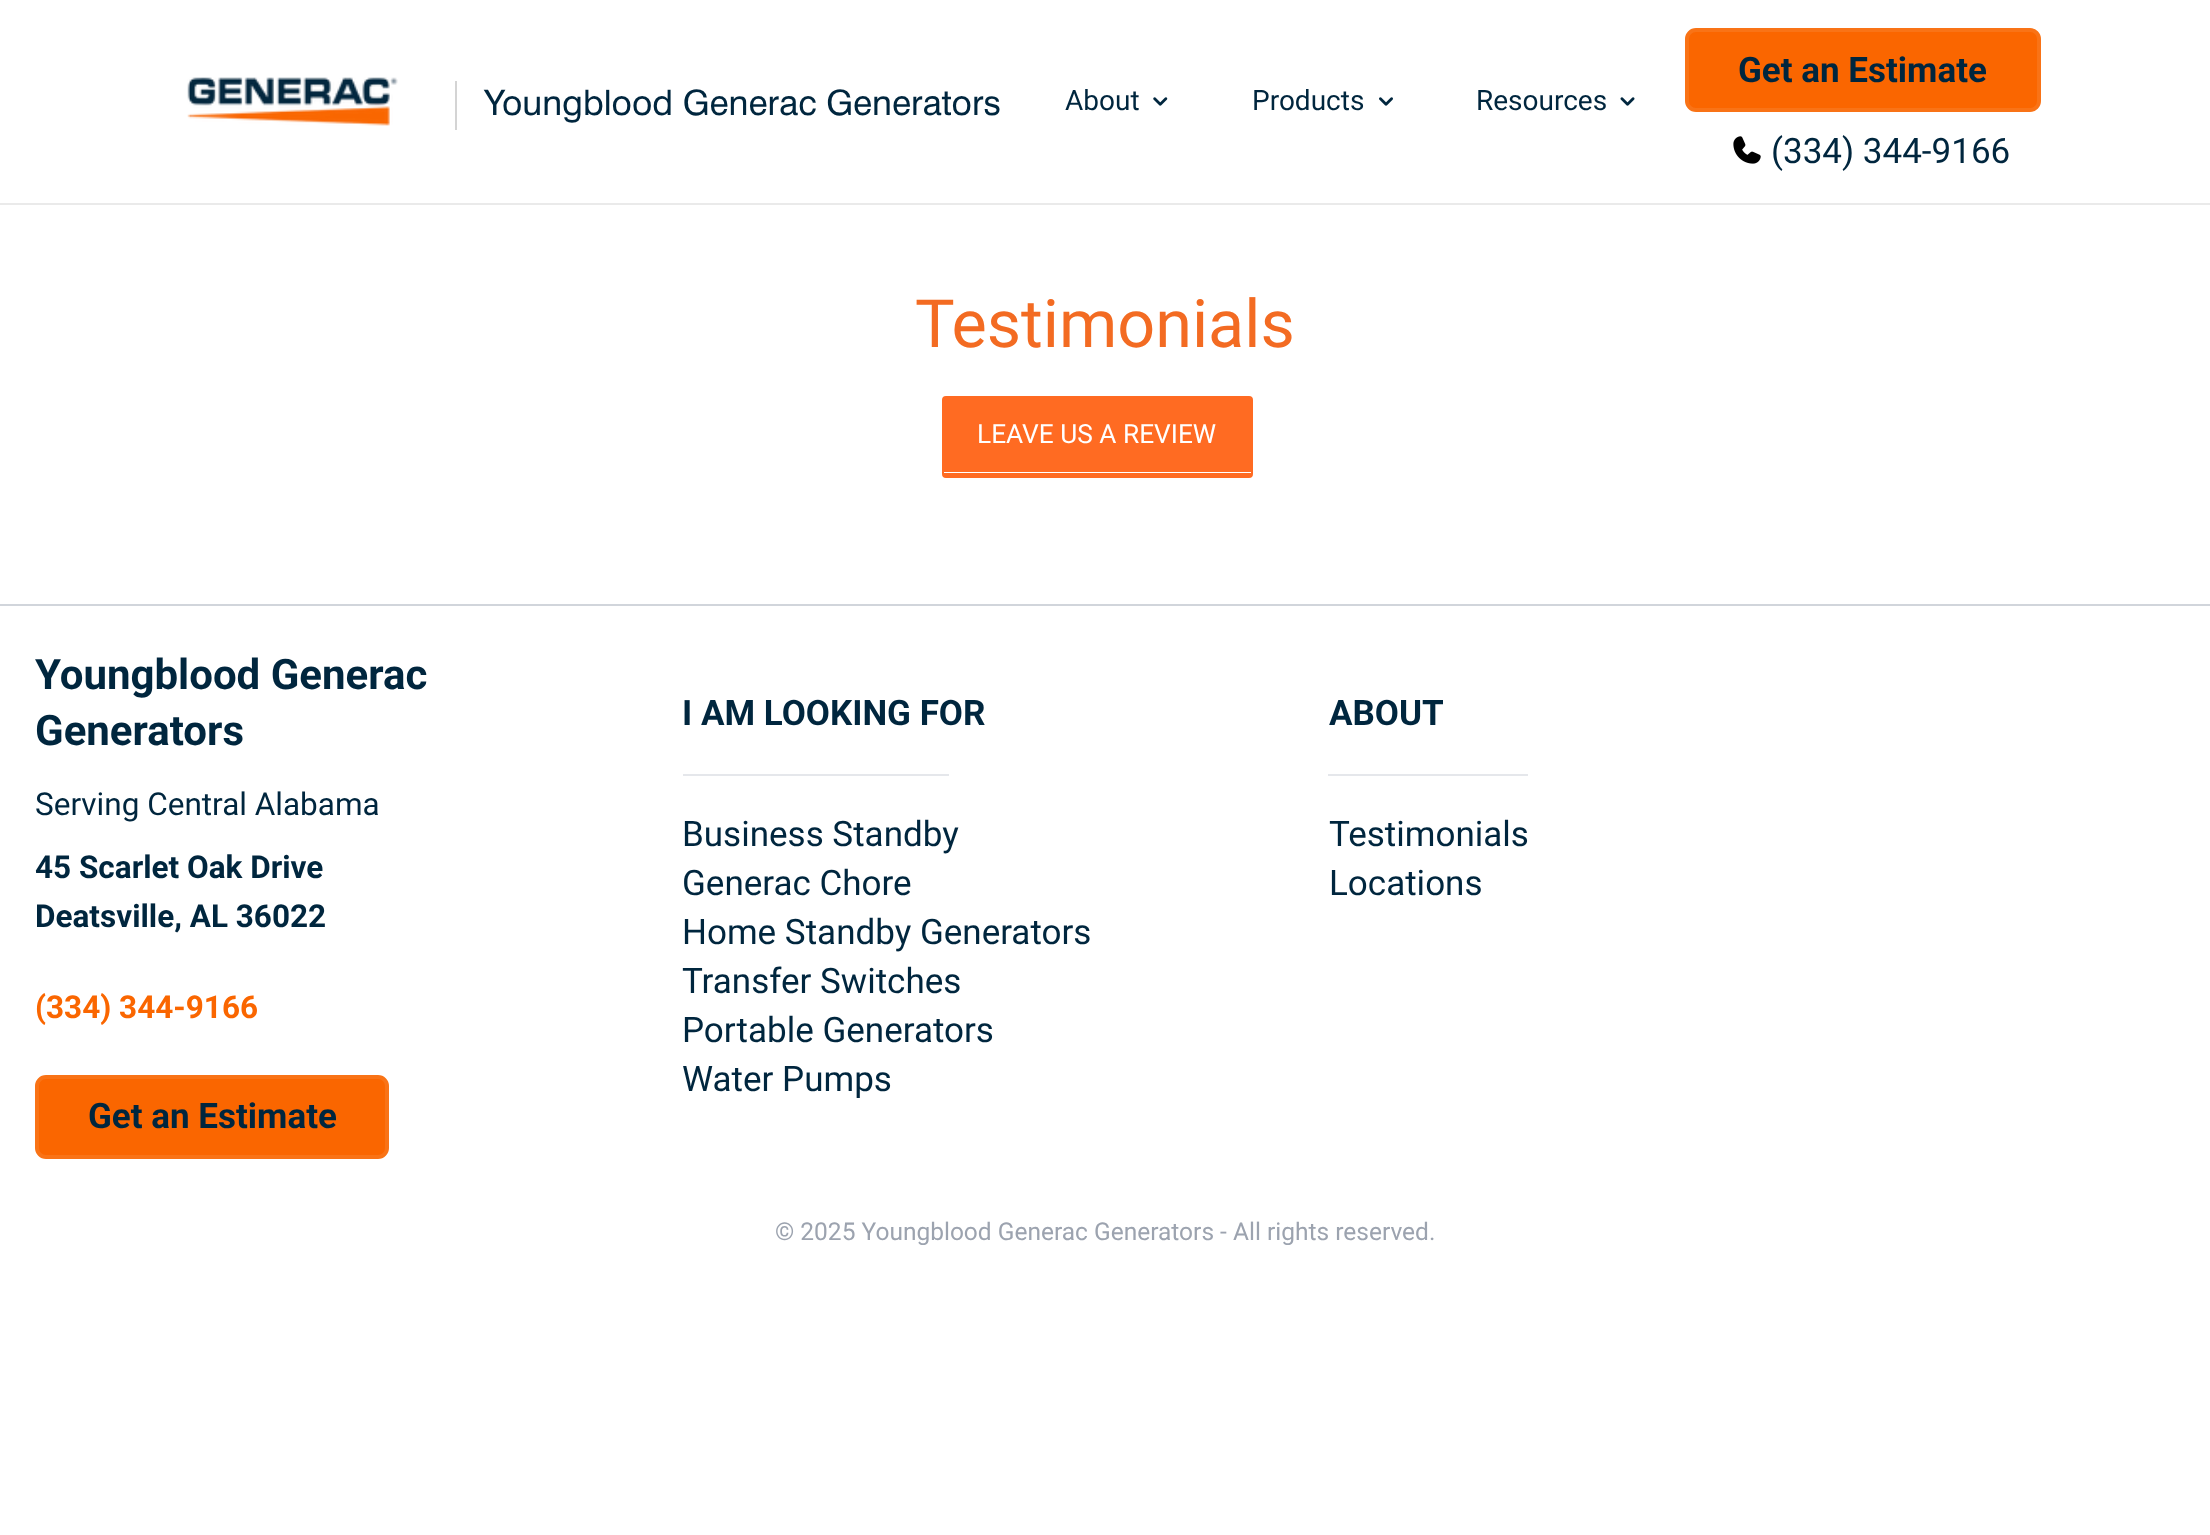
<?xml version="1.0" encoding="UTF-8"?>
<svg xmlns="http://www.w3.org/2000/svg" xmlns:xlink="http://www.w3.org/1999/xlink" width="2210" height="1535">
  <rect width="100%" height="100%" fill="#ffffff" />
  <rect y="203" width="2210" height="2" fill="#eaeaea" />
  <image x="187" y="77" width="211" height="49" xlink:href="image1.png" />
  <rect x="455" y="81" width="2" height="49" fill="#d4d4d4" />
  <image x="1153" y="97" width="15" height="9" xlink:href="image2.png" />
  <image x="1379" y="97" width="14" height="9" xlink:href="image3.png" />
  <image x="1620" y="97" width="15" height="9" xlink:href="image4.png" />
  <rect x="1687" y="30" width="352" height="80" rx="9" fill="#fa6600" stroke="#f97316" stroke-width="4" />
  <image x="1733" y="136" width="28" height="28" xlink:href="image5.png" />
  <path d="M 945 397 h 305 c 0 0 1 1 1 2 v 73 h -308 v -73 c 0 -1 1 -2 2 -2 z" fill="#ff6b22" />
  <rect x="943" y="397" width="309" height="80" rx="3" fill="none" stroke="#ff6b22" stroke-width="2" />
  <rect x="943" y="473" width="308" height="4" fill="#ff6b22" />
  <rect y="604" width="2210" height="2" fill="#d1d5db" />
  <rect x="37" y="1077" width="350" height="80" rx="9" fill="#fa6600" stroke="#f97316" stroke-width="4" />
  <rect x="683" y="774" width="266" height="2" fill="#e5e7eb" />
  <rect x="1328" y="774" width="200" height="2" fill="#e5e7eb" />
  <text x="484" y="115" style="font-family: 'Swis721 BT'; font-size: 35px; fill: #00263e">Youngblood Generac Generators</text>
  <text x="1065" y="110" style="font-family: Roboto; font-size: 28px; fill: #00263e">About</text>
  <text x="1252" y="110" style="font-family: Roboto; font-size: 28px; fill: #00263e">Products</text>
  <text x="1476" y="110" style="font-family: Roboto; font-size: 28px; fill: #00263e">Resources</text>
  <text x="1738" y="82" style="font-family: Roboto; font-size: 35px; font-weight: bold; fill: #00263e">Get an Estimate</text>
  <text x="1771" y="163" style="font-family: Roboto; font-size: 35px; fill: #00263e">(334) 344-9166</text>
  <text x="915" y="347" style="font-family: Roboto; font-size: 66.5px; fill: #f36b22">Testimonials</text>
  <text x="977" y="443" style="font-family: Roboto; font-size: 26.25px; fill: #ffffff">LEAVE US A REVIEW</text>
  <text x="35" y="689" style="font-family: Roboto; font-size: 42px; font-weight: bold; fill: #00263e">Youngblood Generac</text>
  <text x="35" y="745" style="font-family: Roboto; font-size: 42px; font-weight: bold; fill: #00263e">Generators</text>
  <text x="35" y="815" style="font-family: Roboto; font-size: 31.5px; fill: #00263e">Serving Central Alabama</text>
  <text x="35" y="878" style="font-family: Roboto; font-size: 31.5px; font-weight: bold; fill: #00263e">45 Scarlet Oak Drive</text>
  <text x="35" y="927" style="font-family: Roboto; font-size: 31.5px; font-weight: bold; fill: #00263e">Deatsville, AL 36022</text>
  <text x="35" y="1018" style="font-family: Roboto; font-size: 31.5px; font-weight: bold; fill: #fa6600">(334) 344-9166</text>
  <text x="88" y="1128" style="font-family: Roboto; font-size: 35px; font-weight: bold; fill: #00263e">Get an Estimate</text>
  <text x="682" y="725" style="font-family: Roboto; font-size: 35px; font-weight: bold; fill: #00263e">I AM LOOKING FOR</text>
  <text x="682" y="846" style="font-family: Roboto; font-size: 35px; fill: #00263e">Business Standby</text>
  <text x="682" y="895" style="font-family: Roboto; font-size: 35px; fill: #00263e">Generac Chore</text>
  <text x="682" y="944" style="font-family: Roboto; font-size: 35px; fill: #00263e">Home Standby Generators</text>
  <text x="682" y="993" style="font-family: Roboto; font-size: 35px; fill: #00263e">Transfer Switches</text>
  <text x="682" y="1042" style="font-family: Roboto; font-size: 35px; fill: #00263e">Portable Generators</text>
  <text x="682" y="1091" style="font-family: Roboto; font-size: 35px; fill: #00263e">Water Pumps</text>
  <text x="1329" y="725" style="font-family: Roboto; font-size: 35px; font-weight: bold; fill: #00263e">ABOUT</text>
  <text x="1329" y="846" style="font-family: Roboto; font-size: 35px; fill: #00263e">Testimonials</text>
  <text x="1329" y="895" style="font-family: Roboto; font-size: 35px; fill: #00263e">Locations</text>
  <text x="775" y="1240" style="font-family: Roboto; font-size: 24.5px; fill: #9ca3af">© 2025 Youngblood Generac Generators - All rights reserved.</text>
</svg>
